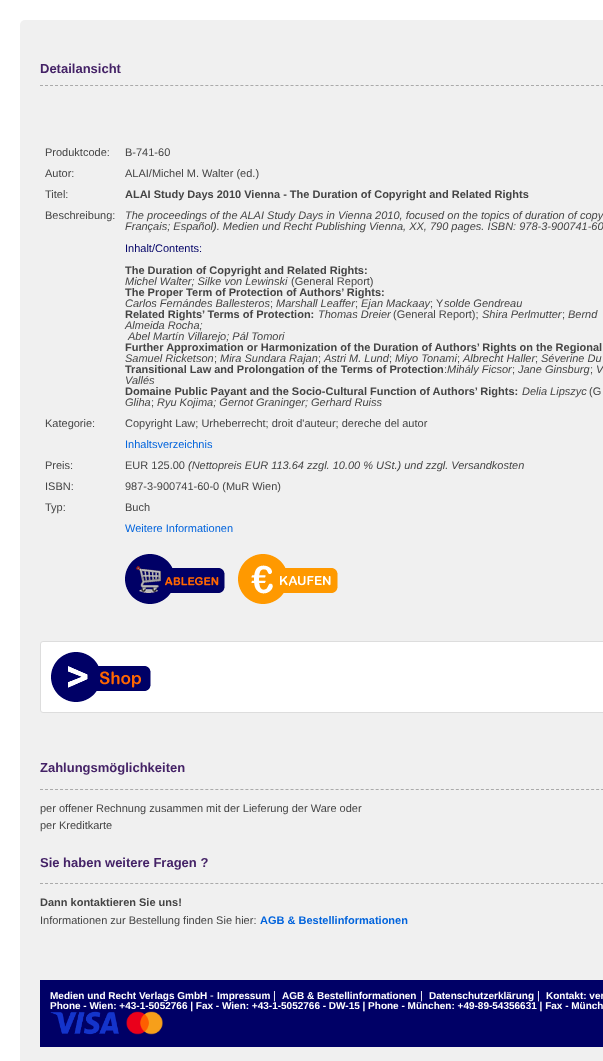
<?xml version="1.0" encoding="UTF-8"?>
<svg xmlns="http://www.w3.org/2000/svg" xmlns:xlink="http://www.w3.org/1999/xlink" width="603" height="1061">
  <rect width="100%" height="100%" fill="#ffffff" />
  <rect x="20" y="20" width="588" height="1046" rx="5" fill="#f0f0f0" />
  <path d="M 40 85.5 h 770" fill="none" stroke="#aaaaaa" stroke-dasharray="3 2.01" />
  <image x="125" y="554" width="100" height="50" xlink:href="image1.png" />
  <image x="238" y="554" width="100" height="50" xlink:href="image2.png" />
  <rect x="40.5" y="641.5" width="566" height="71" rx="2.5" fill="#ffffff" stroke="#dddddd" />
  <image x="51" y="652" width="100" height="50" xlink:href="image3.png" />
  <path d="M 40 789.5 h 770" fill="none" stroke="#aaaaaa" stroke-dasharray="3 2.01" />
  <path d="M 40 883.5 h 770" fill="none" stroke="#aaaaaa" stroke-dasharray="3 2.01" />
  <rect x="40" y="980" width="563" height="67" fill="#000066" />
  <text x="40" y="73" style="font-family: Liberation Sans; font-size: 13px; font-weight: bold; fill: #442266">Detailansicht</text>
  <text x="45" y="156" style="font-family: Liberation Sans; font-size: 11px; fill: #444444">Produktcode:</text>
  <text x="125" y="156" style="font-family: Liberation Sans; font-size: 11px; fill: #444444">B-741-60</text>
  <text x="45" y="177" style="font-family: Liberation Sans; font-size: 11px; fill: #444444">Autor:</text>
  <text x="125" y="177" style="font-family: Liberation Sans; font-size: 11px; fill: #444444">ALAI/Michel M. Walter (ed.)</text>
  <text x="45" y="198" style="font-family: Liberation Sans; font-size: 11px; fill: #444444">Titel:</text>
  <text x="125" y="198" style="font-family: Liberation Sans; font-size: 11px; font-weight: bold; fill: #444444">ALAI Study Days 2010 Vienna - The Duration of Copyright and Related Rights</text>
  <text x="45" y="219" style="font-family: Liberation Sans; font-size: 11px; fill: #444444">Beschreibung:</text>
  <text x="125" y="219" style="font-family: Liberation Sans; font-size: 11px; font-style: italic; fill: #444444">The proceedings of the ALAI Study Days in Vienna 2010, focused on the topics of duration of copy</text>
  <text x="125" y="230" style="font-family: Liberation Sans; font-size: 11px; font-style: italic; fill: #444444">Français; Español). Medien und Recht Publishing Vienna, XX, 790 pages. ISBN: 978-3-900741-60</text>
  <text x="125" y="252" style="font-family: Liberation Sans; font-size: 11px; fill: #000066">Inhalt/Contents:</text>
  <text x="125" y="274" style="font-family: Liberation Sans; font-size: 11px; font-weight: bold; fill: #444444">The Duration of Copyright and Related Rights:</text>
  <text x="125" y="285" style="font-family: Liberation Sans; font-size: 11px; font-style: italic; fill: #444444">Michel Walter; Silke von Lewinski</text>
  <text x="291" y="285" style="font-family: Liberation Sans; font-size: 11px; fill: #444444">(General Report)</text>
  <text x="125" y="296" style="font-family: Liberation Sans; font-size: 11px; font-weight: bold; fill: #444444">The Proper Term of Protection of Authors’ Rights:</text>
  <text x="125" y="307" style="font-family: Liberation Sans; font-size: 11px; font-style: italic; fill: #444444">Carlos Fernándes Ballesteros</text>
  <text x="270" y="307" style="font-family: Liberation Sans; font-size: 11px; fill: #444444">;</text>
  <text x="276" y="307" style="font-family: Liberation Sans; font-size: 11px; font-style: italic; fill: #444444">Marshall Leaffer</text>
  <text x="355" y="307" style="font-family: Liberation Sans; font-size: 11px; fill: #444444">;</text>
  <text x="361" y="307" style="font-family: Liberation Sans; font-size: 11px; font-style: italic; fill: #444444">Ejan Mackaay</text>
  <text x="430" y="307" style="font-family: Liberation Sans; font-size: 11px; fill: #444444">; Y</text>
  <text x="444" y="307" style="font-family: Liberation Sans; font-size: 11px; font-style: italic; fill: #444444">solde Gendreau</text>
  <text x="125" y="318" style="font-family: Liberation Sans; font-size: 11px; font-weight: bold; fill: #444444">Related Rights’ Terms of Protection:</text>
  <text x="318" y="318" style="font-family: Liberation Sans; font-size: 11px; font-style: italic; fill: #444444">Thomas Dreier</text>
  <text x="393" y="318" style="font-family: Liberation Sans; font-size: 11px; fill: #444444">(General Report);</text>
  <text x="482" y="318" style="font-family: Liberation Sans; font-size: 11px; font-style: italic; fill: #444444">Shira Perlmutter</text>
  <text x="562" y="318" style="font-family: Liberation Sans; font-size: 11px; fill: #444444">;</text>
  <text x="568" y="318" style="font-family: Liberation Sans; font-size: 11px; font-style: italic; fill: #444444">Bernd</text>
  <text x="125" y="329" style="font-family: Liberation Sans; font-size: 11px; font-style: italic; fill: #444444">Almeida Rocha;</text>
  <text x="128" y="340" style="font-family: Liberation Sans; font-size: 11px; font-style: italic; fill: #444444">Abel Martín Villarejo; Pál Tomori</text>
  <text x="125" y="351" style="font-family: Liberation Sans; font-size: 11px; font-weight: bold; fill: #444444">Further Approximation or Harmonization of the Duration of Authors’ Rights on the Regional</text>
  <text x="125" y="362" style="font-family: Liberation Sans; font-size: 11px; font-style: italic; fill: #444444">Samuel Ricketson</text>
  <text x="214" y="362" style="font-family: Liberation Sans; font-size: 11px; fill: #444444">;</text>
  <text x="220" y="362" style="font-family: Liberation Sans; font-size: 11px; font-style: italic; fill: #444444">Mira Sundara Rajan</text>
  <text x="318" y="362" style="font-family: Liberation Sans; font-size: 11px; fill: #444444">;</text>
  <text x="324" y="362" style="font-family: Liberation Sans; font-size: 11px; font-style: italic; fill: #444444">Astri M. Lund</text>
  <text x="395" y="362" style="font-family: Liberation Sans; font-size: 11px; font-style: italic; fill: #444444">Miyo Tonami</text>
  <text x="463" y="362" style="font-family: Liberation Sans; font-size: 11px; font-style: italic; fill: #444444">Albrecht Haller</text>
  <text x="541" y="362" style="font-family: Liberation Sans; font-size: 11px; font-style: italic; fill: #444444">Séverine Du</text>
  <text x="389" y="362" style="font-family: Liberation Sans; font-size: 11px; fill: #444444">;</text>
  <text x="457" y="362" style="font-family: Liberation Sans; font-size: 11px; fill: #444444">;</text>
  <text x="535" y="362" style="font-family: Liberation Sans; font-size: 11px; fill: #444444">;</text>
  <text x="125" y="373" style="font-family: Liberation Sans; font-size: 11px; font-weight: bold; fill: #444444">Transitional Law and Prolongation of the Terms of Protection</text>
  <text x="444" y="373" style="font-family: Liberation Sans; font-size: 11px; fill: #444444">:</text>
  <text x="447" y="373" style="font-family: Liberation Sans; font-size: 11px; font-style: italic; fill: #444444">Mihály Ficsor</text>
  <text x="512" y="373" style="font-family: Liberation Sans; font-size: 11px; fill: #444444">;</text>
  <text x="518" y="373" style="font-family: Liberation Sans; font-size: 11px; font-style: italic; fill: #444444">Jane Ginsburg</text>
  <text x="590" y="373" style="font-family: Liberation Sans; font-size: 11px; fill: #444444">;</text>
  <text x="596" y="373" style="font-family: Liberation Sans; font-size: 11px; font-style: italic; fill: #444444">V</text>
  <text x="125" y="384" style="font-family: Liberation Sans; font-size: 11px; font-style: italic; fill: #444444">Vallés</text>
  <text x="125" y="395" style="font-family: Liberation Sans; font-size: 11px; font-weight: bold; fill: #444444">Domaine Public Payant and the Socio-Cultural Function of Authors’ Rights:</text>
  <text x="522" y="395" style="font-family: Liberation Sans; font-size: 11px; font-style: italic; fill: #444444">Delia Lipszyc</text>
  <text x="589" y="395" style="font-family: Liberation Sans; font-size: 11px; fill: #444444">(G</text>
  <text x="125" y="406" style="font-family: Liberation Sans; font-size: 11px; font-style: italic; fill: #444444">Gliha</text>
  <text x="151" y="406" style="font-family: Liberation Sans; font-size: 11px; fill: #444444">;</text>
  <text x="157" y="406" style="font-family: Liberation Sans; font-size: 11px; font-style: italic; fill: #444444">Ryu Kojima; Gernot Graninger; Gerhard Ruiss</text>
  <text x="45" y="427" style="font-family: Liberation Sans; font-size: 11px; fill: #444444">Kategorie:</text>
  <text x="125" y="427" style="font-family: Liberation Sans; font-size: 11px; fill: #444444">Copyright Law; Urheberrecht; droit d'auteur; dereche del autor</text>
  <text x="125" y="448" style="font-family: Liberation Sans; font-size: 11px; fill: #0063dc">Inhaltsverzeichnis</text>
  <text x="45" y="469" style="font-family: Liberation Sans; font-size: 11px; fill: #444444">Preis:</text>
  <text x="125" y="469" style="font-family: Liberation Sans; font-size: 11px; fill: #444444">EUR 125.00</text>
  <text x="188" y="469" style="font-family: Liberation Sans; font-size: 11px; font-style: italic; fill: #444444">(Nettopreis EUR 113.64 zzgl. 10.00 % USt.) und zzgl. Versandkosten</text>
  <text x="45" y="490" style="font-family: Liberation Sans; font-size: 11px; fill: #444444">ISBN:</text>
  <text x="125" y="490" style="font-family: Liberation Sans; font-size: 11px; fill: #444444">987-3-900741-60-0 (MuR Wien)</text>
  <text x="45" y="511" style="font-family: Liberation Sans; font-size: 11px; fill: #444444">Typ:</text>
  <text x="125" y="511" style="font-family: Liberation Sans; font-size: 11px; fill: #444444">Buch</text>
  <text x="125" y="532" style="font-family: Liberation Sans; font-size: 11px; fill: #0063dc">Weitere Informationen</text>
  <text x="40" y="772" style="font-family: Liberation Sans; font-size: 13px; font-weight: bold; fill: #442266">Zahlungsmöglichkeiten</text>
  <text x="40" y="812" style="font-family: Liberation Sans; font-size: 11px; fill: #444444">per offener Rechnung zusammen mit der Lieferung der Ware oder</text>
  <text x="40" y="829" style="font-family: Liberation Sans; font-size: 11px; fill: #444444">per Kreditkarte</text>
  <text x="40" y="867" style="font-family: Liberation Sans; font-size: 13px; font-weight: bold; fill: #442266">Sie haben weitere Fragen ?</text>
  <text x="40" y="906" style="font-family: Liberation Sans; font-size: 11px; font-weight: bold; fill: #444444">Dann kontaktieren Sie uns!</text>
  <text x="40" y="924" style="font-family: Liberation Sans; font-size: 11px; fill: #444444">Informationen zur Bestellung finden Sie hier:</text>
  <text x="260" y="924" style="font-family: Liberation Sans; font-size: 11px; font-weight: bold; fill: #0063dc">AGB &amp; Bestellinformationen</text>
  <text x="50" y="999" style="font-family: Liberation Sans; font-size: 10px; font-weight: bold; fill: #ffffff">Medien und Recht Verlags GmbH</text>
  <text x="210" y="999" style="font-family: Liberation Sans; font-size: 11px; fill: #ffffff">-</text>
  <text x="217" y="999" style="font-family: Liberation Sans; font-size: 10px; font-weight: bold; fill: #ffffff">Impressum</text>
  <text x="273" y="999" style="font-family: Liberation Sans; font-size: 11px; fill: #ffffff">|</text>
  <text x="282" y="999" style="font-family: Liberation Sans; font-size: 10px; font-weight: bold; fill: #ffffff">AGB &amp; Bestellinformationen</text>
  <text x="420" y="999" style="font-family: Liberation Sans; font-size: 11px; fill: #ffffff">|</text>
  <text x="429" y="999" style="font-family: Liberation Sans; font-size: 10px; font-weight: bold; fill: #ffffff">Datenschutzerklärung</text>
  <text x="537" y="999" style="font-family: Liberation Sans; font-size: 11px; fill: #ffffff">|</text>
  <text x="546" y="999" style="font-family: Liberation Sans; font-size: 10px; font-weight: bold; fill: #ffffff">Kontakt: ver</text>
  <text x="50" y="1009" style="font-family: Liberation Sans; font-size: 10px; font-weight: bold; fill: #ffffff">Phone - Wien: +43-1-5052766 | Fax - Wien: +43-1-5052766 - DW-15 | Phone - München: +49-89-54356631 | Fax - Münch</text>
  <image x="50" y="1011" width="69" height="24" xlink:href="image4.png" />
  <image x="126" y="1011" width="37" height="24" xlink:href="image5.png" />
</svg>
